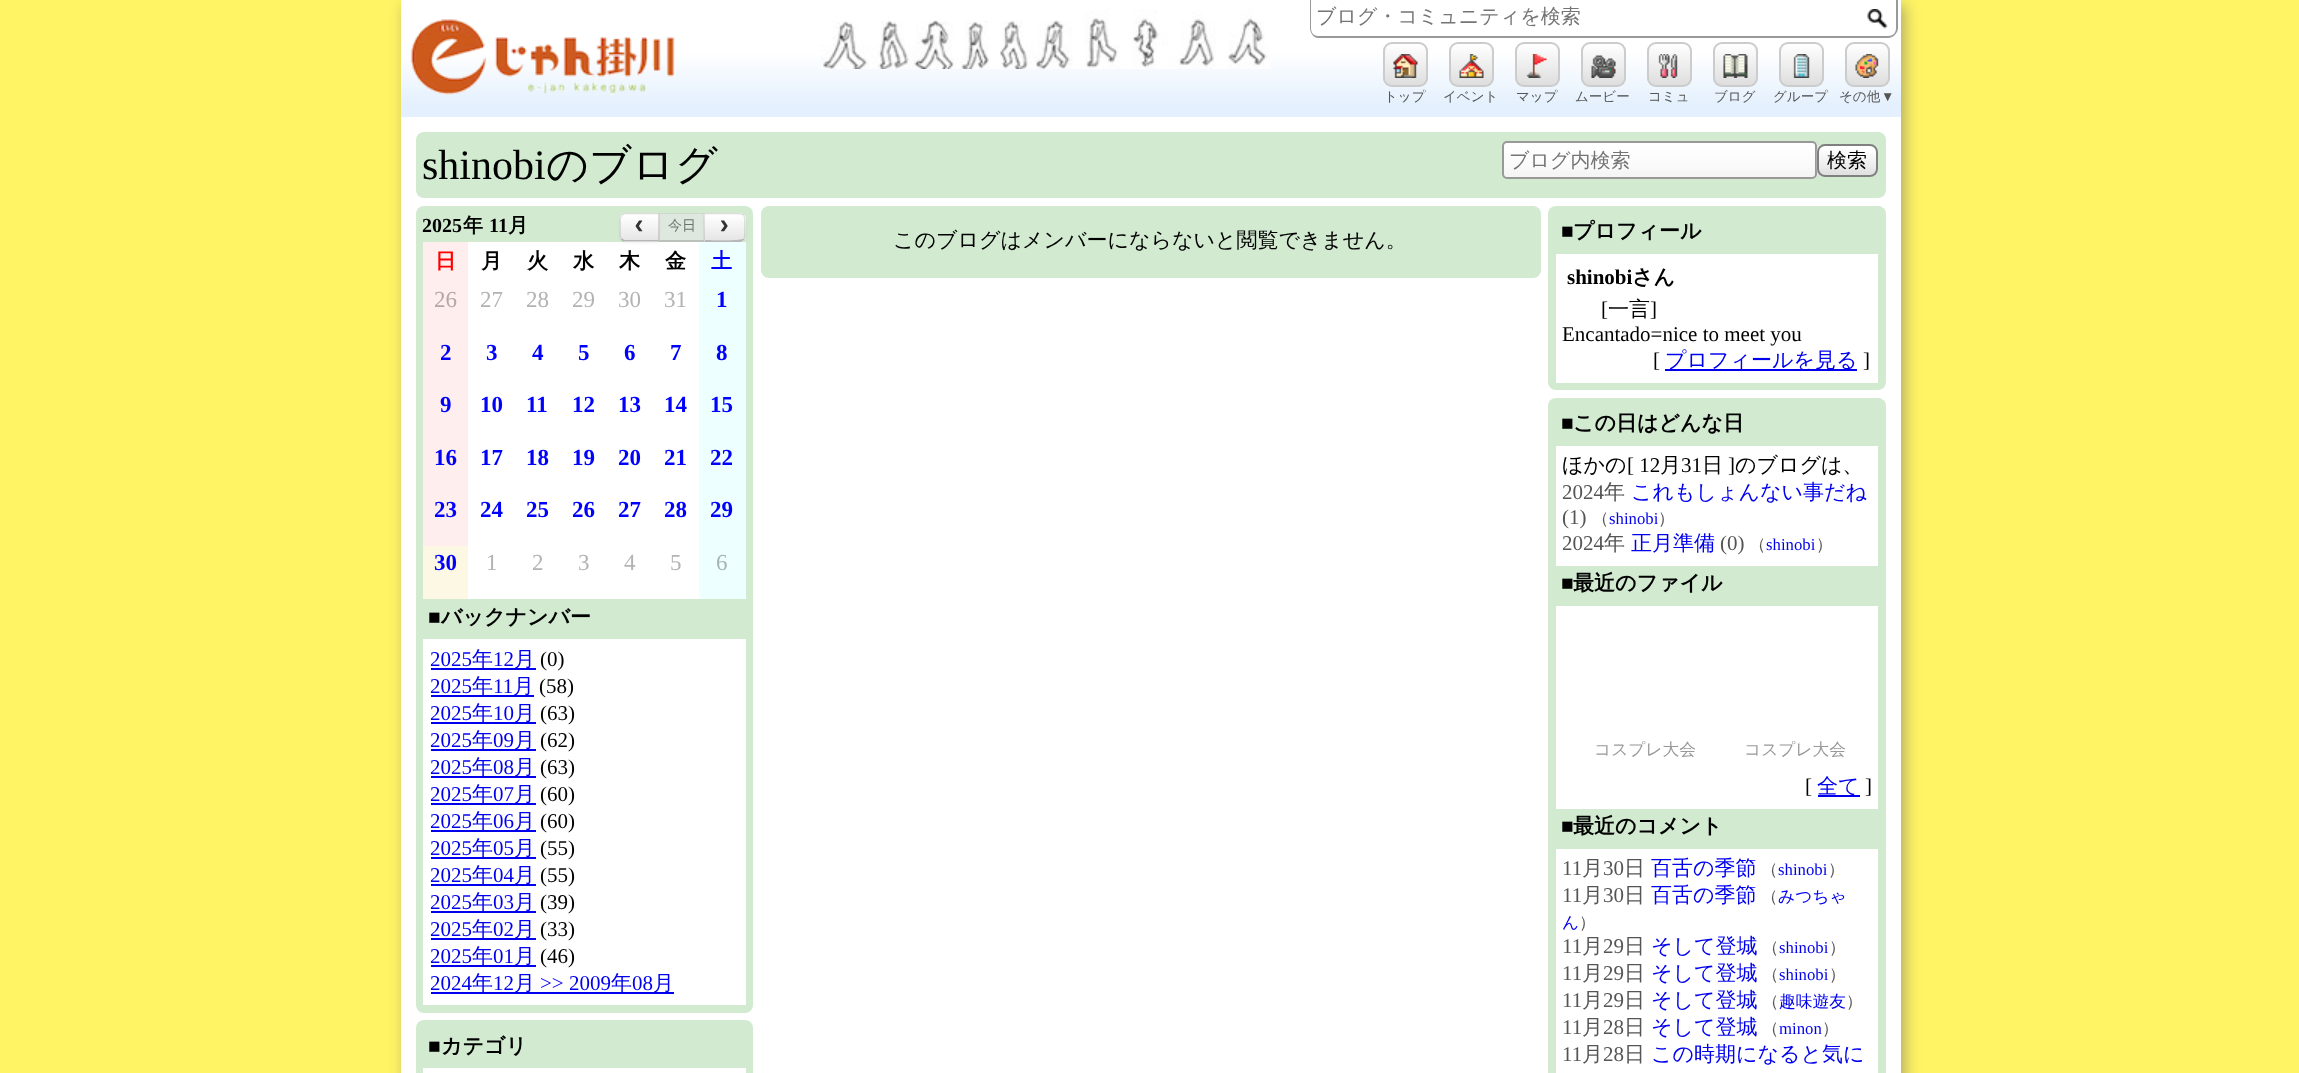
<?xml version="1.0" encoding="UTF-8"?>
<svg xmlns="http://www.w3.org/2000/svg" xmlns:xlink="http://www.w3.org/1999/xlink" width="2299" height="1073">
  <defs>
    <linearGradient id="g1" gradientUnits="userSpaceOnUse" x1="1151" y1="0" x2="1151" y2="105"><stop offset="0.5" stop-color="#ffffff" /><stop offset="1" stop-color="#e4f0fd" /></linearGradient>
    <clipPath id="clip1"><rect x="1383" y="42" width="45" height="45" rx="9" /></clipPath>
    <linearGradient id="g2" gradientUnits="userSpaceOnUse" x1="1406" y1="44" x2="1406" y2="86"><stop offset="0" stop-color="#ffffff" /><stop offset="1" stop-color="#dddddd" /></linearGradient>
    <clipPath id="clip2"><rect x="1449" y="42" width="45" height="45" rx="9" /></clipPath>
    <linearGradient id="g3" gradientUnits="userSpaceOnUse" x1="1472" y1="44" x2="1472" y2="86"><stop offset="0" stop-color="#ffffff" /><stop offset="1" stop-color="#dddddd" /></linearGradient>
    <clipPath id="clip3"><rect x="1515" y="42" width="45" height="45" rx="9" /></clipPath>
    <linearGradient id="g4" gradientUnits="userSpaceOnUse" x1="1538" y1="44" x2="1538" y2="86"><stop offset="0" stop-color="#ffffff" /><stop offset="1" stop-color="#dddddd" /></linearGradient>
    <clipPath id="clip4"><rect x="1581" y="42" width="45" height="45" rx="9" /></clipPath>
    <linearGradient id="g5" gradientUnits="userSpaceOnUse" x1="1604" y1="44" x2="1604" y2="86"><stop offset="0" stop-color="#ffffff" /><stop offset="1" stop-color="#dddddd" /></linearGradient>
    <clipPath id="clip5"><rect x="1647" y="42" width="45" height="45" rx="9" /></clipPath>
    <linearGradient id="g6" gradientUnits="userSpaceOnUse" x1="1670" y1="44" x2="1670" y2="86"><stop offset="0" stop-color="#ffffff" /><stop offset="1" stop-color="#dddddd" /></linearGradient>
    <clipPath id="clip6"><rect x="1713" y="42" width="45" height="45" rx="9" /></clipPath>
    <linearGradient id="g7" gradientUnits="userSpaceOnUse" x1="1736" y1="44" x2="1736" y2="86"><stop offset="0" stop-color="#ffffff" /><stop offset="1" stop-color="#dddddd" /></linearGradient>
    <clipPath id="clip7"><rect x="1779" y="42" width="45" height="45" rx="9" /></clipPath>
    <linearGradient id="g8" gradientUnits="userSpaceOnUse" x1="1802" y1="44" x2="1802" y2="86"><stop offset="0" stop-color="#ffffff" /><stop offset="1" stop-color="#dddddd" /></linearGradient>
    <clipPath id="clip8"><rect x="1845" y="42" width="45" height="45" rx="9" /></clipPath>
    <linearGradient id="g9" gradientUnits="userSpaceOnUse" x1="1868" y1="44" x2="1868" y2="86"><stop offset="0" stop-color="#ffffff" /><stop offset="1" stop-color="#dddddd" /></linearGradient>
    <clipPath id="clip9"><rect x="1502" y="141" width="315" height="38" rx="5" /></clipPath>
    <linearGradient id="g10" gradientUnits="userSpaceOnUse" x1="1659" y1="142" x2="1659" y2="177"><stop offset="0.1" stop-color="#ffffff" /><stop offset="0.7" stop-color="#fafafa" /><stop offset="0.9" stop-color="#f5f5f5" /></linearGradient>
    <clipPath id="clip10"><path d="M 626 213 h 34 v 29 h -34 c -3.5 0 -6 -2.5 -6 -6 v -17 c 0 -3.5 2.5 -6 6 -6 z" /></clipPath>
    <linearGradient id="g11" gradientUnits="userSpaceOnUse" x1="640" y1="215" x2="640" y2="240"><stop offset="0" stop-color="#ffffff" /><stop offset="1" stop-color="#e6e6e6" /></linearGradient>
    <clipPath id="clip11"><path d="M 704 213 h 36 c 3.5 0 6 2.5 6 6 v 17 c 0 3.5 -2.5 6 -6 6 h -36 z" /></clipPath>
    <linearGradient id="g12" gradientUnits="userSpaceOnUse" x1="725" y1="215" x2="725" y2="240"><stop offset="0" stop-color="#ffffff" /><stop offset="1" stop-color="#e6e6e6" /></linearGradient>
  </defs>
  <rect width="100%" height="100%" fill="#fff464" />
  <rect x="405" y="5" width="1500" height="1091" fill="#646464" fill-opacity="0.5" filter="blur(7.5px)" />
  <rect x="401" y="117" width="1500" height="956" fill="#ffffff" />
  <rect x="401" width="1500" height="105" fill="url(#g1)" />
  <image x="410" y="19" width="266" height="76" xlink:href="image1.png" />
  <image x="820" y="9" width="450" height="60" xlink:href="image2.png" />
  <path d="M 1310 0 h 588 v 28 c 0 5 -5 10 -10 10 h -570 c -4 0 -8 -5 -8 -10 z m 1 0 h 585 v 28 c 0 5 -3 8 -8 8 h -570 c -4 0 -7 -3 -7 -8 z" fill="#999999" fill-rule="evenodd" />
  <image x="1867" y="9" width="21" height="20" xlink:href="image3.png" />
  <g clip-path="url(#clip1)">
    <rect x="1383" y="44" width="45" height="42" fill="url(#g2)" />
  </g>
  <rect x="1384" y="43" width="43" height="43" rx="8" fill="none" stroke="#cccccc" stroke-width="2" />
  <image x="1393" y="54" width="25" height="24" xlink:href="image4.png" />
  <g clip-path="url(#clip2)">
    <rect x="1449" y="44" width="45" height="42" fill="url(#g3)" />
  </g>
  <rect x="1450" y="43" width="43" height="43" rx="8" fill="none" stroke="#cccccc" stroke-width="2" />
  <image x="1459" y="54" width="25" height="24" xlink:href="image5.png" />
  <g clip-path="url(#clip3)">
    <rect x="1515" y="44" width="45" height="42" fill="url(#g4)" />
  </g>
  <rect x="1516" y="43" width="43" height="43" rx="8" fill="none" stroke="#cccccc" stroke-width="2" />
  <image x="1526" y="54" width="21" height="24" xlink:href="image6.png" />
  <g clip-path="url(#clip4)">
    <rect x="1581" y="44" width="45" height="42" fill="url(#g5)" />
  </g>
  <rect x="1582" y="43" width="43" height="43" rx="8" fill="none" stroke="#cccccc" stroke-width="2" />
  <image x="1591" y="55" width="25" height="23" xlink:href="image7.png" />
  <g clip-path="url(#clip5)">
    <rect x="1647" y="44" width="45" height="42" fill="url(#g6)" />
  </g>
  <rect x="1648" y="43" width="43" height="43" rx="8" fill="none" stroke="#cccccc" stroke-width="2" />
  <image x="1658" y="54" width="20" height="24" xlink:href="image8.png" />
  <g clip-path="url(#clip6)">
    <rect x="1713" y="44" width="45" height="42" fill="url(#g7)" />
  </g>
  <rect x="1714" y="43" width="43" height="43" rx="8" fill="none" stroke="#cccccc" stroke-width="2" />
  <image x="1723" y="54" width="25" height="24" xlink:href="image9.png" />
  <g clip-path="url(#clip7)">
    <rect x="1779" y="44" width="45" height="42" fill="url(#g8)" />
  </g>
  <rect x="1780" y="43" width="43" height="43" rx="8" fill="none" stroke="#cccccc" stroke-width="2" />
  <image x="1793" y="54" width="17" height="24" xlink:href="image10.png" />
  <g clip-path="url(#clip8)">
    <rect x="1845" y="44" width="45" height="42" fill="url(#g9)" />
  </g>
  <rect x="1846" y="43" width="43" height="43" rx="8" fill="none" stroke="#cccccc" stroke-width="2" />
  <image x="1855" y="54" width="24" height="24" xlink:href="image11.png" />
  <rect x="401" y="105" width="1500" height="12" fill="#e4f0fd" />
  <rect x="416" y="132" width="1470" height="66" rx="8" fill="#d1ead0" />
  <g clip-path="url(#clip9)">
    <rect x="1502" y="143" width="315" height="34" fill="url(#g10)" />
  </g>
  <rect x="1503" y="142" width="313" height="36" rx="4" fill="none" stroke="#999999" stroke-width="2" />
  <image x="1816" y="144" width="62" height="33" xlink:href="image12.png" />
  <rect x="1818" y="145" width="59" height="31" rx="7" fill="none" stroke="#808080" stroke-width="2" />
  <rect x="416" y="206" width="337" height="807" rx="8" fill="#d1ead0" />
  <rect x="468" y="242" width="231" height="357" fill="#ffffff" />
  <rect x="620" y="215" width="40" height="28" rx="6" fill="#000000" fill-opacity="0.05" filter="blur(1.5px)" />
  <path d="M 626 213 h 34 v 29 h -34 c -3.5 0 -6 -2.5 -6 -6 v -17 c 0 -3.5 2.5 -6 6 -6 z" fill="#f5f5f5" />
  <g clip-path="url(#clip10)">
    <rect x="620" y="215" width="40" height="25" fill="url(#g11)" />
  </g>
  <path d="M 626 216 h 32 v 24 h 1 v -25 h -33 c -3 0 -5 2 -5 5 c 0 -2 2 -4 5 -4 z" fill="#ffffff" fill-opacity="0.2" />
  <path d="M 626 213 c -2 0 -3.5 1 -4.5 2 l 1 1 c 0.5 -1 2 -2 3.5 -2 h 32 v 1 l 2 -2 z" fill="#000000" fill-opacity="0.1" />
  <path d="M 660 213 l -2 2 v 24.5 l 2 2 z" fill="#000000" fill-opacity="0.1" />
  <path d="M 660 241.5 h -36.5 l -2.5 -1.5 l 1.5 -1.5 c 0.5 1 2 1.5 3.5 1.5 h 32 v -0.5 z" fill="#000000" fill-opacity="0.25" />
  <path d="M 621.5 215 c -2.5 3 -1.5 9 -1.5 12.5 c 0 3 -1 9.5 1 12.5 l 1.5 -1.5 c -1 -0.5 -1.5 -1.5 -1.5 -2.5 v -17 c 0 -1 0.5 -2 1.5 -3 z" fill="#000000" fill-opacity="0.1" />
  <rect x="659" y="213" width="45" height="29" fill="#e6e6e6" fill-opacity="0.65" />
  <path d="M 658 213 h 47 l -1 1 h -44 z" fill="#000000" fill-opacity="0.07" />
  <path d="M 705 213 v 28.5 l -1.5 -1.5 v -25.5 z" fill="#495249" fill-opacity="0.1" />
  <path d="M 705 242 h -47 l 2 -2 h 44 z" fill="#000000" fill-opacity="0.16" />
  <path d="M 658.5 241.5 v -28.5 l 1.5 1.5 v 25.5 z" fill="#000000" fill-opacity="0.07" />
  <rect x="704" y="215" width="42" height="28" rx="6" fill="#000000" fill-opacity="0.05" filter="blur(1.5px)" />
  <path d="M 704 213 h 36 c 3.5 0 6 2.5 6 6 v 17 c 0 3.5 -2.5 6 -6 6 h -36 z" fill="#f5f5f5" />
  <g clip-path="url(#clip11)">
    <rect x="704" y="215" width="42" height="25" fill="url(#g12)" />
  </g>
  <path d="M 704 213 v 0.5 l 1 1 v -0.5 h 29 c 5 0 7.5 0.5 9 1.5 l 1 -1 c -1.5 -1 -4.5 -1.5 -10 -1.5 z" fill="#000000" fill-opacity="0.1" />
  <path d="M 745.5 237.5 c -0.5 1 -1 2 -1.5 2.5 l -1 -1 c 0.5 -1 1 -2 1 -3 v -17.5 c 0 -1 -0.5 -2 -1 -3 l 1 -1 c 0.5 0.5 1 1.5 1.5 2.5 z" fill="#000000" fill-opacity="0.1" />
  <path d="M 704 242 l 1 -2 c 5 0 35 1 38 -1 l 1 1 l -3 2 z" fill="#000000" fill-opacity="0.25" />
  <path d="M 704 213.5 v 27.5 l 1 -1 v -25.5 z" fill="#000000" fill-opacity="0.1" />
  <rect x="423" y="242" width="45" height="304" fill="#ffeeee" />
  <rect x="699" y="242" width="47" height="357" fill="#eeffff" />
  <rect x="423" y="546" width="45" height="53" fill="#fcf8e3" />
  <rect x="423" y="639" width="323" height="366" fill="#ffffff" />
  <rect x="431" y="668" width="105" height="2" fill="#0000ee" />
  <rect x="431" y="695" width="103" height="2" fill="#0000ee" />
  <rect x="431" y="722" width="105" height="2" fill="#0000ee" />
  <rect x="431" y="749" width="105" height="2" fill="#0000ee" />
  <rect x="431" y="776" width="105" height="2" fill="#0000ee" />
  <rect x="431" y="803" width="105" height="2" fill="#0000ee" />
  <rect x="431" y="830" width="105" height="2" fill="#0000ee" />
  <rect x="431" y="857" width="105" height="2" fill="#0000ee" />
  <rect x="431" y="884" width="105" height="2" fill="#0000ee" />
  <rect x="431" y="911" width="105" height="2" fill="#0000ee" />
  <rect x="431" y="938" width="105" height="2" fill="#0000ee" />
  <rect x="431" y="965" width="105" height="2" fill="#0000ee" />
  <rect x="431" y="992" width="243" height="2" fill="#0000ee" />
  <rect x="416" y="1020" width="337" height="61" rx="8" fill="#d1ead0" />
  <rect x="423" y="1068" width="323" height="5" fill="#ffffff" />
  <rect x="761" y="206" width="780" height="72" rx="8" fill="#d1ead0" />
  <rect x="1548" y="206" width="338" height="184" rx="8" fill="#d1ead0" />
  <rect x="1556" y="254" width="322" height="129" fill="#ffffff" />
  <rect x="1665" y="369" width="192" height="2" fill="#0000ee" />
  <rect x="1548" y="398" width="338" height="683" rx="8" fill="#d1ead0" />
  <rect x="1556" y="446" width="322" height="120" fill="#ffffff" />
  <rect x="1556" y="606" width="322" height="203" fill="#ffffff" />
  <rect x="1818" y="795" width="42" height="2" fill="#0000ee" />
  <rect x="1556" y="849" width="322" height="224" fill="#ffffff" />
  <text x="1316" y="23" style="font-family: WenQuanYi Zen Hei; font-size: 20px; font-weight: 500; fill: #757575">ブログ・コミュニティを検索</text>
  <text x="1384" y="101" style="font-family: WenQuanYi Zen Hei; font-size: 13.5px; font-weight: 500; fill: #555555">トップ</text>
  <text x="1443" y="101" style="font-family: WenQuanYi Zen Hei; font-size: 13.5px; font-weight: 500; fill: #555555">イベント</text>
  <text x="1516" y="101" style="font-family: WenQuanYi Zen Hei; font-size: 13.5px; font-weight: 500; fill: #555555">マップ</text>
  <text x="1575" y="101" style="font-family: WenQuanYi Zen Hei; font-size: 13.5px; font-weight: 500; fill: #555555">ムービー</text>
  <text x="1648" y="101" style="font-family: WenQuanYi Zen Hei; font-size: 13.5px; font-weight: 500; fill: #555555">コミュ</text>
  <text x="1714" y="101" style="font-family: WenQuanYi Zen Hei; font-size: 13.5px; font-weight: 500; fill: #555555">ブログ</text>
  <text x="1773" y="101" style="font-family: WenQuanYi Zen Hei; font-size: 13.5px; font-weight: 500; fill: #555555">グループ</text>
  <text x="1839" y="101" style="font-family: WenQuanYi Zen Hei; font-size: 13.5px; font-weight: 500; fill: #555555">その他</text>
  <text x="1881" y="101" style="font-family: Liberation Serif; font-size: 13.5px; fill: #555555">▼</text>
  <text x="422" y="179" style="font-family: Liberation Serif; font-size: 42px; fill: #000000">shinobi</text>
  <text x="546" y="179" style="font-family: WenQuanYi Zen Hei; font-size: 42px; font-weight: 500; fill: #000000">のブログ</text>
  <text x="1509" y="167" style="font-family: WenQuanYi Zen Hei; font-size: 20px; font-weight: 500; fill: #757575">ブログ内検索</text>
  <text x="1827" y="167" style="font-family: WenQuanYi Zen Hei; font-size: 20px; font-weight: 500; fill: #000000">検索</text>
  <text x="422" y="232" style="font-family: Liberation Serif; font-size: 20px; font-weight: bold; fill: #000000">2025</text>
  <text x="463" y="232" style="font-family: WenQuanYi Zen Hei; font-size: 20px; font-weight: bold; fill: #000000">年</text>
  <text x="489" y="232" style="font-family: Liberation Serif; font-size: 20px; font-weight: bold; fill: #000000">11</text>
  <text x="508" y="232" style="font-family: WenQuanYi Zen Hei; font-size: 20px; font-weight: bold; fill: #000000">月</text>
  <text x="631" y="233" style="font-family: Liberation Mono; font-size: 27px; font-weight: bold; fill: #333333">‹</text>
  <text x="668" y="230" style="font-family: WenQuanYi Zen Hei; font-size: 14px; font-weight: 500; fill: #6a736a">今日</text>
  <text x="716" y="233" style="font-family: Liberation Mono; font-size: 27px; font-weight: bold; fill: #333333">›</text>
  <text x="435" y="268" style="font-family: WenQuanYi Zen Hei; font-size: 21px; font-weight: bold; fill: #ff0000">日</text>
  <text x="481" y="268" style="font-family: WenQuanYi Zen Hei; font-size: 21px; font-weight: bold; fill: #000000">月</text>
  <text x="527" y="268" style="font-family: WenQuanYi Zen Hei; font-size: 21px; font-weight: bold; fill: #000000">火</text>
  <text x="573" y="268" style="font-family: WenQuanYi Zen Hei; font-size: 21px; font-weight: bold; fill: #000000">水</text>
  <text x="619" y="268" style="font-family: WenQuanYi Zen Hei; font-size: 21px; font-weight: bold; fill: #000000">木</text>
  <text x="665" y="268" style="font-family: WenQuanYi Zen Hei; font-size: 21px; font-weight: bold; fill: #000000">金</text>
  <text x="711" y="268" style="font-family: WenQuanYi Zen Hei; font-size: 21px; font-weight: bold; fill: #0000ff">土</text>
  <text x="434" y="307" style="font-family: Liberation Serif; font-size: 23px; fill: #b3a7a7">26</text>
  <text x="480" y="307" style="font-family: Liberation Serif; font-size: 23px; fill: #b3b3b3">27</text>
  <text x="526" y="307" style="font-family: Liberation Serif; font-size: 23px; fill: #b3b3b3">28</text>
  <text x="572" y="307" style="font-family: Liberation Serif; font-size: 23px; fill: #b3b3b3">29</text>
  <text x="618" y="307" style="font-family: Liberation Serif; font-size: 23px; fill: #b3b3b3">30</text>
  <text x="664" y="307" style="font-family: Liberation Serif; font-size: 23px; fill: #b3b3b3">31</text>
  <text x="716" y="307" style="font-family: Liberation Serif; font-size: 23px; font-weight: bold; fill: #0000ff">1</text>
  <text x="440" y="360" style="font-family: Liberation Serif; font-size: 23px; font-weight: bold; fill: #0000ff">2</text>
  <text x="486" y="360" style="font-family: Liberation Serif; font-size: 23px; font-weight: bold; fill: #0000ff">3</text>
  <text x="532" y="360" style="font-family: Liberation Serif; font-size: 23px; font-weight: bold; fill: #0000ff">4</text>
  <text x="578" y="360" style="font-family: Liberation Serif; font-size: 23px; font-weight: bold; fill: #0000ff">5</text>
  <text x="624" y="360" style="font-family: Liberation Serif; font-size: 23px; font-weight: bold; fill: #0000ff">6</text>
  <text x="670" y="360" style="font-family: Liberation Serif; font-size: 23px; font-weight: bold; fill: #0000ff">7</text>
  <text x="716" y="360" style="font-family: Liberation Serif; font-size: 23px; font-weight: bold; fill: #0000ff">8</text>
  <text x="440" y="412" style="font-family: Liberation Serif; font-size: 23px; font-weight: bold; fill: #0000ff">9</text>
  <text x="480" y="412" style="font-family: Liberation Serif; font-size: 23px; font-weight: bold; fill: #0000ff">10</text>
  <text x="526" y="412" style="font-family: Liberation Serif; font-size: 23px; font-weight: bold; fill: #0000ff">11</text>
  <text x="572" y="412" style="font-family: Liberation Serif; font-size: 23px; font-weight: bold; fill: #0000ff">12</text>
  <text x="618" y="412" style="font-family: Liberation Serif; font-size: 23px; font-weight: bold; fill: #0000ff">13</text>
  <text x="664" y="412" style="font-family: Liberation Serif; font-size: 23px; font-weight: bold; fill: #0000ff">14</text>
  <text x="710" y="412" style="font-family: Liberation Serif; font-size: 23px; font-weight: bold; fill: #0000ff">15</text>
  <text x="434" y="465" style="font-family: Liberation Serif; font-size: 23px; font-weight: bold; fill: #0000ff">16</text>
  <text x="480" y="465" style="font-family: Liberation Serif; font-size: 23px; font-weight: bold; fill: #0000ff">17</text>
  <text x="526" y="465" style="font-family: Liberation Serif; font-size: 23px; font-weight: bold; fill: #0000ff">18</text>
  <text x="572" y="465" style="font-family: Liberation Serif; font-size: 23px; font-weight: bold; fill: #0000ff">19</text>
  <text x="618" y="465" style="font-family: Liberation Serif; font-size: 23px; font-weight: bold; fill: #0000ff">20</text>
  <text x="664" y="465" style="font-family: Liberation Serif; font-size: 23px; font-weight: bold; fill: #0000ff">21</text>
  <text x="710" y="465" style="font-family: Liberation Serif; font-size: 23px; font-weight: bold; fill: #0000ff">22</text>
  <text x="434" y="517" style="font-family: Liberation Serif; font-size: 23px; font-weight: bold; fill: #0000ff">23</text>
  <text x="480" y="517" style="font-family: Liberation Serif; font-size: 23px; font-weight: bold; fill: #0000ff">24</text>
  <text x="526" y="517" style="font-family: Liberation Serif; font-size: 23px; font-weight: bold; fill: #0000ff">25</text>
  <text x="572" y="517" style="font-family: Liberation Serif; font-size: 23px; font-weight: bold; fill: #0000ff">26</text>
  <text x="618" y="517" style="font-family: Liberation Serif; font-size: 23px; font-weight: bold; fill: #0000ff">27</text>
  <text x="664" y="517" style="font-family: Liberation Serif; font-size: 23px; font-weight: bold; fill: #0000ff">28</text>
  <text x="710" y="517" style="font-family: Liberation Serif; font-size: 23px; font-weight: bold; fill: #0000ff">29</text>
  <text x="434" y="570" style="font-family: Liberation Serif; font-size: 23px; font-weight: bold; fill: #0000ff">30</text>
  <text x="486" y="570" style="font-family: Liberation Serif; font-size: 23px; fill: #b3b3b3">1</text>
  <text x="532" y="570" style="font-family: Liberation Serif; font-size: 23px; fill: #b3b3b3">2</text>
  <text x="578" y="570" style="font-family: Liberation Serif; font-size: 23px; fill: #b3b3b3">3</text>
  <text x="624" y="570" style="font-family: Liberation Serif; font-size: 23px; fill: #b3b3b3">4</text>
  <text x="670" y="570" style="font-family: Liberation Serif; font-size: 23px; fill: #b3b3b3">5</text>
  <text x="716" y="570" style="font-family: Liberation Serif; font-size: 23px; fill: #a7b3b3">6</text>
  <text x="428" y="624" style="font-family: Liberation Serif; font-size: 21px; font-weight: bold; fill: #000000">■</text>
  <text x="441" y="624" style="font-family: WenQuanYi Zen Hei; font-size: 21px; font-weight: bold; fill: #000000">バックナンバー</text>
  <text x="430" y="666" style="font-family: Liberation Serif; font-size: 21px; fill: #0000ee">2025</text>
  <text x="472" y="666" style="font-family: WenQuanYi Zen Hei; font-size: 21px; font-weight: 500; fill: #0000ee">年</text>
  <text x="493" y="666" style="font-family: Liberation Serif; font-size: 21px; fill: #0000ee">12</text>
  <text x="514" y="666" style="font-family: WenQuanYi Zen Hei; font-size: 21px; font-weight: 500; fill: #0000ee">月</text>
  <text x="540" y="666" style="font-family: Liberation Serif; font-size: 21px; fill: #000000">(0)</text>
  <text x="430" y="693" style="font-family: Liberation Serif; font-size: 21px; fill: #0000ee">2025</text>
  <text x="472" y="693" style="font-family: WenQuanYi Zen Hei; font-size: 21px; font-weight: 500; fill: #0000ee">年</text>
  <text x="493" y="693" style="font-family: Liberation Serif; font-size: 21px; fill: #0000ee">11</text>
  <text x="513" y="693" style="font-family: WenQuanYi Zen Hei; font-size: 21px; font-weight: 500; fill: #0000ee">月</text>
  <text x="539" y="693" style="font-family: Liberation Serif; font-size: 21px; fill: #000000">(58)</text>
  <text x="430" y="720" style="font-family: Liberation Serif; font-size: 21px; fill: #0000ee">2025</text>
  <text x="472" y="720" style="font-family: WenQuanYi Zen Hei; font-size: 21px; font-weight: 500; fill: #0000ee">年</text>
  <text x="493" y="720" style="font-family: Liberation Serif; font-size: 21px; fill: #0000ee">10</text>
  <text x="514" y="720" style="font-family: WenQuanYi Zen Hei; font-size: 21px; font-weight: 500; fill: #0000ee">月</text>
  <text x="540" y="720" style="font-family: Liberation Serif; font-size: 21px; fill: #000000">(63)</text>
  <text x="430" y="747" style="font-family: Liberation Serif; font-size: 21px; fill: #0000ee">2025</text>
  <text x="472" y="747" style="font-family: WenQuanYi Zen Hei; font-size: 21px; font-weight: 500; fill: #0000ee">年</text>
  <text x="493" y="747" style="font-family: Liberation Serif; font-size: 21px; fill: #0000ee">09</text>
  <text x="514" y="747" style="font-family: WenQuanYi Zen Hei; font-size: 21px; font-weight: 500; fill: #0000ee">月</text>
  <text x="540" y="747" style="font-family: Liberation Serif; font-size: 21px; fill: #000000">(62)</text>
  <text x="430" y="774" style="font-family: Liberation Serif; font-size: 21px; fill: #0000ee">2025</text>
  <text x="472" y="774" style="font-family: WenQuanYi Zen Hei; font-size: 21px; font-weight: 500; fill: #0000ee">年</text>
  <text x="493" y="774" style="font-family: Liberation Serif; font-size: 21px; fill: #0000ee">08</text>
  <text x="514" y="774" style="font-family: WenQuanYi Zen Hei; font-size: 21px; font-weight: 500; fill: #0000ee">月</text>
  <text x="540" y="774" style="font-family: Liberation Serif; font-size: 21px; fill: #000000">(63)</text>
  <text x="430" y="801" style="font-family: Liberation Serif; font-size: 21px; fill: #0000ee">2025</text>
  <text x="472" y="801" style="font-family: WenQuanYi Zen Hei; font-size: 21px; font-weight: 500; fill: #0000ee">年</text>
  <text x="493" y="801" style="font-family: Liberation Serif; font-size: 21px; fill: #0000ee">07</text>
  <text x="514" y="801" style="font-family: WenQuanYi Zen Hei; font-size: 21px; font-weight: 500; fill: #0000ee">月</text>
  <text x="540" y="801" style="font-family: Liberation Serif; font-size: 21px; fill: #000000">(60)</text>
  <text x="430" y="828" style="font-family: Liberation Serif; font-size: 21px; fill: #0000ee">2025</text>
  <text x="472" y="828" style="font-family: WenQuanYi Zen Hei; font-size: 21px; font-weight: 500; fill: #0000ee">年</text>
  <text x="493" y="828" style="font-family: Liberation Serif; font-size: 21px; fill: #0000ee">06</text>
  <text x="514" y="828" style="font-family: WenQuanYi Zen Hei; font-size: 21px; font-weight: 500; fill: #0000ee">月</text>
  <text x="540" y="828" style="font-family: Liberation Serif; font-size: 21px; fill: #000000">(60)</text>
  <text x="430" y="855" style="font-family: Liberation Serif; font-size: 21px; fill: #0000ee">2025</text>
  <text x="472" y="855" style="font-family: WenQuanYi Zen Hei; font-size: 21px; font-weight: 500; fill: #0000ee">年</text>
  <text x="493" y="855" style="font-family: Liberation Serif; font-size: 21px; fill: #0000ee">05</text>
  <text x="514" y="855" style="font-family: WenQuanYi Zen Hei; font-size: 21px; font-weight: 500; fill: #0000ee">月</text>
  <text x="540" y="855" style="font-family: Liberation Serif; font-size: 21px; fill: #000000">(55)</text>
  <text x="430" y="882" style="font-family: Liberation Serif; font-size: 21px; fill: #0000ee">2025</text>
  <text x="472" y="882" style="font-family: WenQuanYi Zen Hei; font-size: 21px; font-weight: 500; fill: #0000ee">年</text>
  <text x="493" y="882" style="font-family: Liberation Serif; font-size: 21px; fill: #0000ee">04</text>
  <text x="514" y="882" style="font-family: WenQuanYi Zen Hei; font-size: 21px; font-weight: 500; fill: #0000ee">月</text>
  <text x="540" y="882" style="font-family: Liberation Serif; font-size: 21px; fill: #000000">(55)</text>
  <text x="430" y="909" style="font-family: Liberation Serif; font-size: 21px; fill: #0000ee">2025</text>
  <text x="472" y="909" style="font-family: WenQuanYi Zen Hei; font-size: 21px; font-weight: 500; fill: #0000ee">年</text>
  <text x="493" y="909" style="font-family: Liberation Serif; font-size: 21px; fill: #0000ee">03</text>
  <text x="514" y="909" style="font-family: WenQuanYi Zen Hei; font-size: 21px; font-weight: 500; fill: #0000ee">月</text>
  <text x="540" y="909" style="font-family: Liberation Serif; font-size: 21px; fill: #000000">(39)</text>
  <text x="430" y="936" style="font-family: Liberation Serif; font-size: 21px; fill: #0000ee">2025</text>
  <text x="472" y="936" style="font-family: WenQuanYi Zen Hei; font-size: 21px; font-weight: 500; fill: #0000ee">年</text>
  <text x="493" y="936" style="font-family: Liberation Serif; font-size: 21px; fill: #0000ee">02</text>
  <text x="514" y="936" style="font-family: WenQuanYi Zen Hei; font-size: 21px; font-weight: 500; fill: #0000ee">月</text>
  <text x="540" y="936" style="font-family: Liberation Serif; font-size: 21px; fill: #000000">(33)</text>
  <text x="430" y="963" style="font-family: Liberation Serif; font-size: 21px; fill: #0000ee">2025</text>
  <text x="472" y="963" style="font-family: WenQuanYi Zen Hei; font-size: 21px; font-weight: 500; fill: #0000ee">年</text>
  <text x="493" y="963" style="font-family: Liberation Serif; font-size: 21px; fill: #0000ee">01</text>
  <text x="514" y="963" style="font-family: WenQuanYi Zen Hei; font-size: 21px; font-weight: 500; fill: #0000ee">月</text>
  <text x="540" y="963" style="font-family: Liberation Serif; font-size: 21px; fill: #000000">(46)</text>
  <text x="430" y="990" style="font-family: Liberation Serif; font-size: 21px; fill: #0000ee">2024</text>
  <text x="472" y="990" style="font-family: WenQuanYi Zen Hei; font-size: 21px; font-weight: 500; fill: #0000ee">年</text>
  <text x="493" y="990" style="font-family: Liberation Serif; font-size: 21px; fill: #0000ee">12</text>
  <text x="514" y="990" style="font-family: WenQuanYi Zen Hei; font-size: 21px; font-weight: 500; fill: #0000ee">月</text>
  <text x="540" y="990" style="font-family: Liberation Serif; font-size: 21px; fill: #0000ee">&gt;&gt; 2009</text>
  <text x="611" y="990" style="font-family: WenQuanYi Zen Hei; font-size: 21px; font-weight: 500; fill: #0000ee">年</text>
  <text x="632" y="990" style="font-family: Liberation Serif; font-size: 21px; fill: #0000ee">08</text>
  <text x="653" y="990" style="font-family: WenQuanYi Zen Hei; font-size: 21px; font-weight: 500; fill: #0000ee">月</text>
  <text x="428" y="1053" style="font-family: Liberation Serif; font-size: 21px; font-weight: bold; fill: #000000">■</text>
  <text x="441" y="1053" style="font-family: WenQuanYi Zen Hei; font-size: 21px; font-weight: bold; fill: #000000">カテゴリ</text>
  <text x="893" y="247" style="font-family: WenQuanYi Zen Hei; font-size: 21px; font-weight: 500; fill: #000000">このブログはメンバーにならないと閲覧できません。</text>
  <text x="1561" y="238" style="font-family: Liberation Serif; font-size: 21px; font-weight: bold; fill: #000000">■</text>
  <text x="1573" y="238" style="font-family: WenQuanYi Zen Hei; font-size: 21px; font-weight: bold; fill: #000000">プロフィール</text>
  <text x="1567" y="284" style="font-family: Liberation Serif; font-size: 21px; font-weight: bold; fill: #000000">shinobi</text>
  <text x="1632" y="284" style="font-family: WenQuanYi Zen Hei; font-size: 21px; font-weight: bold; fill: #000000">さん</text>
  <text x="1601" y="316" style="font-family: Liberation Serif; font-size: 21px; fill: #000000">[</text>
  <text x="1608" y="316" style="font-family: WenQuanYi Zen Hei; font-size: 21px; font-weight: 500; fill: #000000">一言</text>
  <text x="1650" y="316" style="font-family: Liberation Serif; font-size: 21px; fill: #000000">]</text>
  <text x="1562" y="341" style="font-family: Liberation Serif; font-size: 21px; fill: #000000">Encantado=nice to meet you</text>
  <text x="1653" y="367" style="font-family: Liberation Serif; font-size: 21px; fill: #000000">[</text>
  <text x="1665" y="367" style="font-family: WenQuanYi Zen Hei; font-size: 21px; font-weight: 500; fill: #0000ee">プロフィールを見る</text>
  <text x="1863" y="367" style="font-family: Liberation Serif; font-size: 21px; fill: #000000">]</text>
  <text x="1561" y="430" style="font-family: Liberation Serif; font-size: 21px; font-weight: bold; fill: #000000">■</text>
  <text x="1573" y="430" style="font-family: WenQuanYi Zen Hei; font-size: 21px; font-weight: bold; fill: #000000">この日はどんな日</text>
  <text x="1562" y="472" style="font-family: WenQuanYi Zen Hei; font-size: 21px; font-weight: 500; fill: #000000">ほかの</text>
  <text x="1627" y="472" style="font-family: Liberation Serif; font-size: 21px; fill: #000000">[ 12</text>
  <text x="1660" y="472" style="font-family: WenQuanYi Zen Hei; font-size: 21px; font-weight: 500; fill: #000000">月</text>
  <text x="1681" y="472" style="font-family: Liberation Serif; font-size: 21px; fill: #000000">31</text>
  <text x="1702" y="472" style="font-family: WenQuanYi Zen Hei; font-size: 21px; font-weight: 500; fill: #000000">日</text>
  <text x="1728" y="472" style="font-family: Liberation Serif; font-size: 21px; fill: #000000">]</text>
  <text x="1735" y="472" style="font-family: WenQuanYi Zen Hei; font-size: 21px; font-weight: 500; fill: #000000">のブログは、</text>
  <text x="1562" y="499" style="font-family: Liberation Serif; font-size: 21px; fill: #555555">2024</text>
  <text x="1604" y="499" style="font-family: WenQuanYi Zen Hei; font-size: 21px; font-weight: 500; fill: #555555">年</text>
  <text x="1631" y="499" style="font-family: WenQuanYi Zen Hei; font-size: 21px; font-weight: 500; fill: #0000ee">これもしょんない事だね</text>
  <text x="1562" y="524" style="font-family: Liberation Serif; font-size: 21px; fill: #555555">(1)</text>
  <text x="1592" y="524" style="font-family: WenQuanYi Zen Hei; font-size: 16.75px; font-weight: 500; fill: #555555">（</text>
  <text x="1609" y="524" style="font-family: Liberation Serif; font-size: 16.75px; fill: #0000ee">shinobi</text>
  <text x="1658" y="524" style="font-family: WenQuanYi Zen Hei; font-size: 16.75px; font-weight: 500; fill: #555555">）</text>
  <text x="1562" y="550" style="font-family: Liberation Serif; font-size: 21px; fill: #555555">2024</text>
  <text x="1604" y="550" style="font-family: WenQuanYi Zen Hei; font-size: 21px; font-weight: 500; fill: #555555">年</text>
  <text x="1631" y="550" style="font-family: WenQuanYi Zen Hei; font-size: 21px; font-weight: 500; fill: #0000ee">正月準備</text>
  <text x="1720" y="550" style="font-family: Liberation Serif; font-size: 21px; fill: #555555">(0)</text>
  <text x="1749" y="550" style="font-family: WenQuanYi Zen Hei; font-size: 16.75px; font-weight: 500; fill: #555555">（</text>
  <text x="1766" y="550" style="font-family: Liberation Serif; font-size: 16.75px; fill: #0000ee">shinobi</text>
  <text x="1816" y="550" style="font-family: WenQuanYi Zen Hei; font-size: 16.75px; font-weight: 500; fill: #555555">）</text>
  <text x="1561" y="590" style="font-family: Liberation Serif; font-size: 21px; font-weight: bold; fill: #000000">■</text>
  <text x="1573" y="590" style="font-family: WenQuanYi Zen Hei; font-size: 21px; font-weight: bold; fill: #000000">最近のファイル</text>
  <text x="1594" y="755" style="font-family: WenQuanYi Zen Hei; font-size: 16.75px; font-weight: 500; fill: #999999">コスプレ大会</text>
  <text x="1744" y="755" style="font-family: WenQuanYi Zen Hei; font-size: 16.75px; font-weight: 500; fill: #999999">コスプレ大会</text>
  <text x="1805" y="793" style="font-family: Liberation Serif; font-size: 21px; fill: #000000">[</text>
  <text x="1817" y="793" style="font-family: WenQuanYi Zen Hei; font-size: 21px; font-weight: 500; fill: #0000ee">全て</text>
  <text x="1865" y="793" style="font-family: Liberation Serif; font-size: 21px; fill: #000000">]</text>
  <text x="1561" y="833" style="font-family: Liberation Serif; font-size: 21px; font-weight: bold; fill: #000000">■</text>
  <text x="1573" y="833" style="font-family: WenQuanYi Zen Hei; font-size: 21px; font-weight: bold; fill: #000000">最近のコメント</text>
  <text x="1562" y="875" style="font-family: Liberation Serif; font-size: 21px; fill: #555555">11</text>
  <text x="1582" y="875" style="font-family: WenQuanYi Zen Hei; font-size: 21px; font-weight: 500; fill: #555555">月</text>
  <text x="1603" y="875" style="font-family: Liberation Serif; font-size: 21px; fill: #555555">30</text>
  <text x="1624" y="875" style="font-family: WenQuanYi Zen Hei; font-size: 21px; font-weight: 500; fill: #555555">日</text>
  <text x="1651" y="875" style="font-family: WenQuanYi Zen Hei; font-size: 21px; font-weight: 500; fill: #0000ee">百舌の季節</text>
  <text x="1761" y="875" style="font-family: WenQuanYi Zen Hei; font-size: 16.75px; font-weight: 500; fill: #555555">（</text>
  <text x="1778" y="875" style="font-family: Liberation Serif; font-size: 16.75px; fill: #0000ee">shinobi</text>
  <text x="1828" y="875" style="font-family: WenQuanYi Zen Hei; font-size: 16.75px; font-weight: 500; fill: #555555">）</text>
  <text x="1562" y="902" style="font-family: Liberation Serif; font-size: 21px; fill: #555555">11</text>
  <text x="1582" y="902" style="font-family: WenQuanYi Zen Hei; font-size: 21px; font-weight: 500; fill: #555555">月</text>
  <text x="1603" y="902" style="font-family: Liberation Serif; font-size: 21px; fill: #555555">30</text>
  <text x="1624" y="902" style="font-family: WenQuanYi Zen Hei; font-size: 21px; font-weight: 500; fill: #555555">日</text>
  <text x="1651" y="902" style="font-family: WenQuanYi Zen Hei; font-size: 21px; font-weight: 500; fill: #0000ee">百舌の季節</text>
  <text x="1761" y="902" style="font-family: WenQuanYi Zen Hei; font-size: 16.75px; font-weight: 500; fill: #555555">（</text>
  <text x="1778" y="902" style="font-family: WenQuanYi Zen Hei; font-size: 16.75px; font-weight: 500; fill: #0000ee">みつちゃ</text>
  <text x="1562" y="928" style="font-family: WenQuanYi Zen Hei; font-size: 16.75px; font-weight: 500; fill: #0000ee">ん</text>
  <text x="1579" y="928" style="font-family: WenQuanYi Zen Hei; font-size: 16.75px; font-weight: 500; fill: #555555">）</text>
  <text x="1562" y="953" style="font-family: Liberation Serif; font-size: 21px; fill: #555555">11</text>
  <text x="1582" y="953" style="font-family: WenQuanYi Zen Hei; font-size: 21px; font-weight: 500; fill: #555555">月</text>
  <text x="1603" y="953" style="font-family: Liberation Serif; font-size: 21px; fill: #555555">29</text>
  <text x="1624" y="953" style="font-family: WenQuanYi Zen Hei; font-size: 21px; font-weight: 500; fill: #555555">日</text>
  <text x="1651" y="953" style="font-family: WenQuanYi Zen Hei; font-size: 21px; font-weight: 500; fill: #0000ee">そして登城</text>
  <text x="1762" y="953" style="font-family: WenQuanYi Zen Hei; font-size: 16.75px; font-weight: 500; fill: #555555">（</text>
  <text x="1779" y="953" style="font-family: Liberation Serif; font-size: 16.75px; fill: #0000ee">shinobi</text>
  <text x="1829" y="953" style="font-family: WenQuanYi Zen Hei; font-size: 16.75px; font-weight: 500; fill: #555555">）</text>
  <text x="1562" y="980" style="font-family: Liberation Serif; font-size: 21px; fill: #555555">11</text>
  <text x="1582" y="980" style="font-family: WenQuanYi Zen Hei; font-size: 21px; font-weight: 500; fill: #555555">月</text>
  <text x="1603" y="980" style="font-family: Liberation Serif; font-size: 21px; fill: #555555">29</text>
  <text x="1624" y="980" style="font-family: WenQuanYi Zen Hei; font-size: 21px; font-weight: 500; fill: #555555">日</text>
  <text x="1651" y="980" style="font-family: WenQuanYi Zen Hei; font-size: 21px; font-weight: 500; fill: #0000ee">そして登城</text>
  <text x="1762" y="980" style="font-family: WenQuanYi Zen Hei; font-size: 16.75px; font-weight: 500; fill: #555555">（</text>
  <text x="1779" y="980" style="font-family: Liberation Serif; font-size: 16.75px; fill: #0000ee">shinobi</text>
  <text x="1829" y="980" style="font-family: WenQuanYi Zen Hei; font-size: 16.75px; font-weight: 500; fill: #555555">）</text>
  <text x="1562" y="1007" style="font-family: Liberation Serif; font-size: 21px; fill: #555555">11</text>
  <text x="1582" y="1007" style="font-family: WenQuanYi Zen Hei; font-size: 21px; font-weight: 500; fill: #555555">月</text>
  <text x="1603" y="1007" style="font-family: Liberation Serif; font-size: 21px; fill: #555555">29</text>
  <text x="1624" y="1007" style="font-family: WenQuanYi Zen Hei; font-size: 21px; font-weight: 500; fill: #555555">日</text>
  <text x="1651" y="1007" style="font-family: WenQuanYi Zen Hei; font-size: 21px; font-weight: 500; fill: #0000ee">そして登城</text>
  <text x="1762" y="1007" style="font-family: WenQuanYi Zen Hei; font-size: 16.75px; font-weight: 500; fill: #555555">（</text>
  <text x="1779" y="1007" style="font-family: WenQuanYi Zen Hei; font-size: 16.75px; font-weight: 500; fill: #0000ee">趣味遊友</text>
  <text x="1846" y="1007" style="font-family: WenQuanYi Zen Hei; font-size: 16.75px; font-weight: 500; fill: #555555">）</text>
  <text x="1562" y="1034" style="font-family: Liberation Serif; font-size: 21px; fill: #555555">11</text>
  <text x="1582" y="1034" style="font-family: WenQuanYi Zen Hei; font-size: 21px; font-weight: 500; fill: #555555">月</text>
  <text x="1603" y="1034" style="font-family: Liberation Serif; font-size: 21px; fill: #555555">28</text>
  <text x="1624" y="1034" style="font-family: WenQuanYi Zen Hei; font-size: 21px; font-weight: 500; fill: #555555">日</text>
  <text x="1651" y="1034" style="font-family: WenQuanYi Zen Hei; font-size: 21px; font-weight: 500; fill: #0000ee">そして登城</text>
  <text x="1762" y="1034" style="font-family: WenQuanYi Zen Hei; font-size: 16.75px; font-weight: 500; fill: #555555">（</text>
  <text x="1779" y="1034" style="font-family: Liberation Serif; font-size: 16.75px; fill: #0000ee">minon</text>
  <text x="1822" y="1034" style="font-family: WenQuanYi Zen Hei; font-size: 16.75px; font-weight: 500; fill: #555555">）</text>
  <text x="1562" y="1061" style="font-family: Liberation Serif; font-size: 21px; fill: #555555">11</text>
  <text x="1582" y="1061" style="font-family: WenQuanYi Zen Hei; font-size: 21px; font-weight: 500; fill: #555555">月</text>
  <text x="1603" y="1061" style="font-family: Liberation Serif; font-size: 21px; fill: #555555">28</text>
  <text x="1624" y="1061" style="font-family: WenQuanYi Zen Hei; font-size: 21px; font-weight: 500; fill: #555555">日</text>
  <text x="1651" y="1061" style="font-family: WenQuanYi Zen Hei; font-size: 21px; font-weight: 500; fill: #0000ee">この時期になると気に</text>
</svg>
